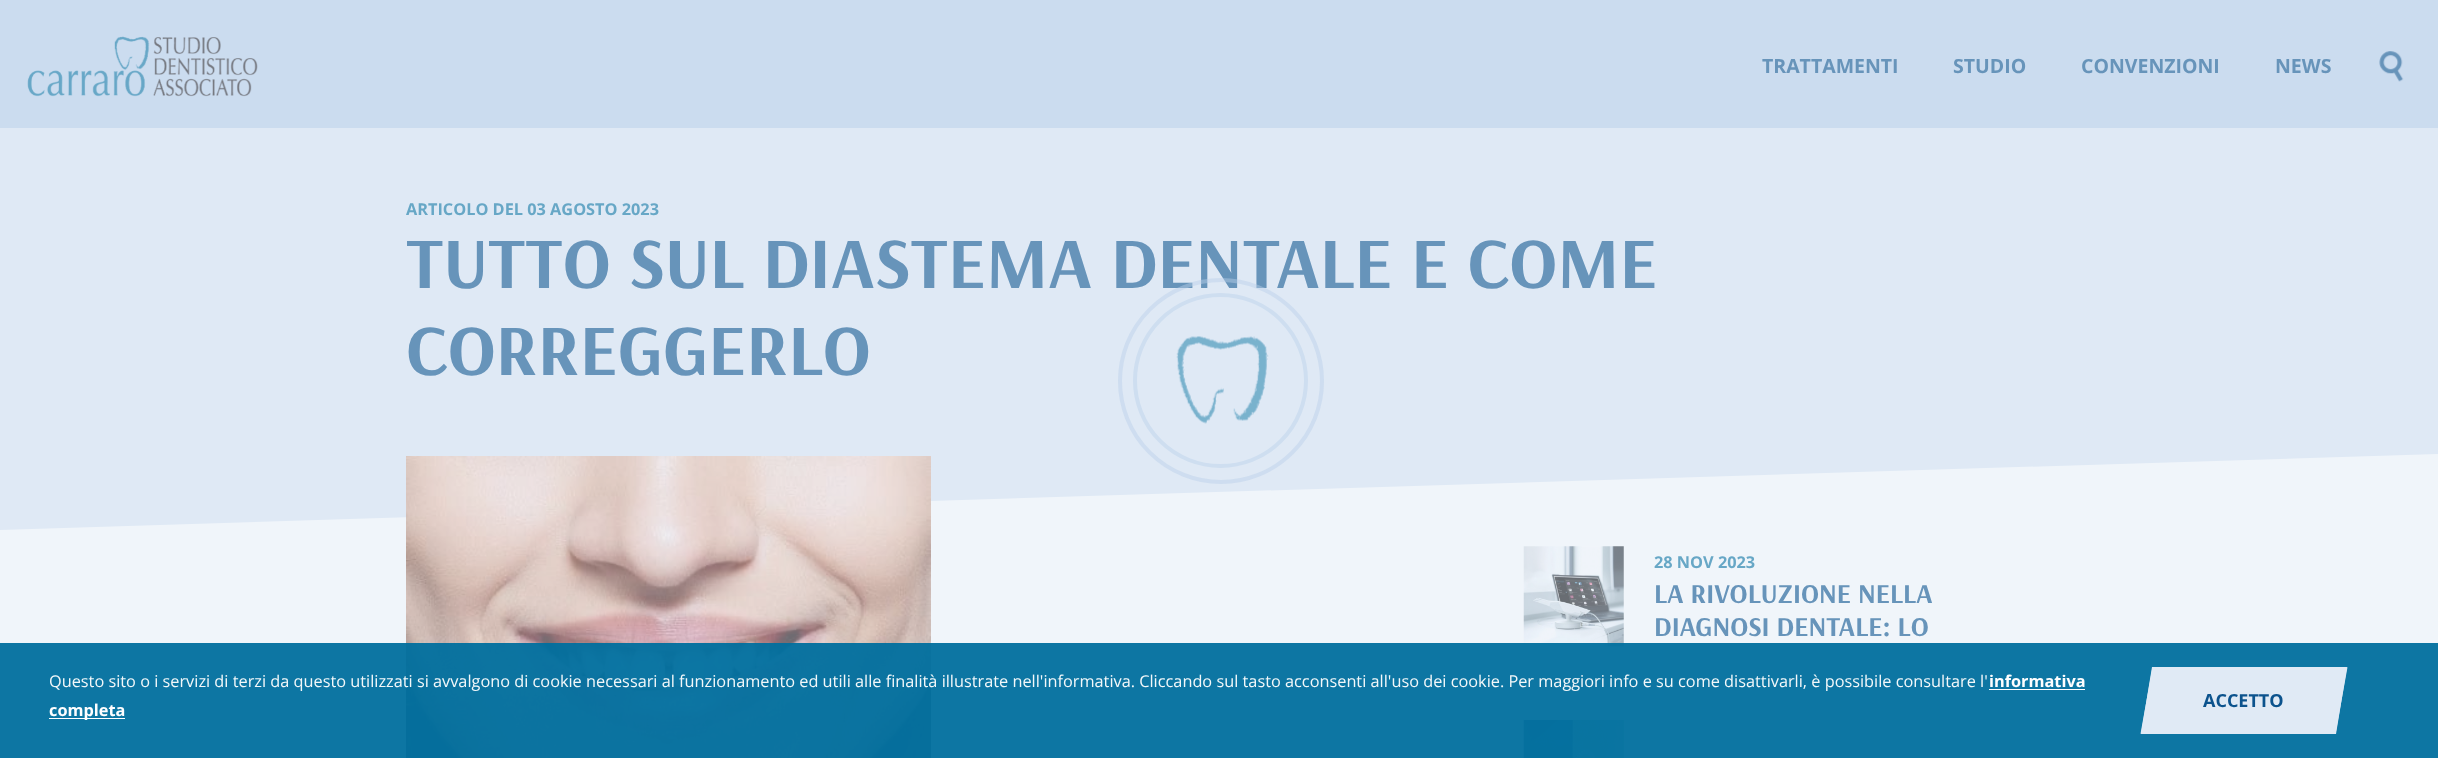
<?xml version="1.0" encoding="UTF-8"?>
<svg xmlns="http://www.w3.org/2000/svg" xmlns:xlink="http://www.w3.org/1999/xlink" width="2438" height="758">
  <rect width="100%" height="100%" fill="#f0f5fa" />
  <rect width="2438" height="128" fill="#cbdcef" />
  <image x="27" y="36" width="231" height="61" xlink:href="image1.png" />
  <image x="2379" y="51" width="25" height="31" xlink:href="image2.png" />
  <rect y="128" width="2438" height="318" fill="#dfe9f5" />
  <path d="M 0 446 v 84 l 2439 -76 v -8 z" fill="#dfe9f5" />
  <image x="406" y="456" width="525" height="302" xlink:href="image3.png" />
  <image x="1523" y="546" width="101" height="101" xlink:href="image4.png" />
  <image x="1523" y="720" width="101" height="38" xlink:href="image5.png" />
  <rect y="643" width="2438" height="115" fill="#006f9e" fill-opacity="0.95" />
  <rect x="1989" y="689" width="96" height="1" fill="#fefeff" />
  <rect x="49" y="718" width="76" height="1" fill="#fefeff" />
  <path d="M 2152 667 h 195 l -11 67 h -195 z" fill="#e0eaf5" />
  <path d="M 2153.5 668.5 h 192.5 l -11.5 64 h -192.5 z" fill="none" stroke="#e0eaf5" stroke-width="2.5" />
  <text x="1762" y="73" style="font-family: Open Sans; font-size: 19.5px; font-weight: bold; fill: #6794ba">TRATTAMENTI</text>
  <text x="1953" y="73" style="font-family: Open Sans; font-size: 19.5px; font-weight: bold; fill: #6794ba">STUDIO</text>
  <text x="2081" y="73" style="font-family: Open Sans; font-size: 19.5px; font-weight: bold; fill: #6794ba">CONVENZIONI</text>
  <text x="2275" y="73" style="font-family: Open Sans; font-size: 19.5px; font-weight: bold; fill: #6794ba">NEWS</text>
  <text x="406" y="215" style="font-family: Open Sans; font-size: 16.31px; font-weight: bold; fill: #67a7c6">ARTICOLO DEL 03 AGOSTO 2023</text>
  <text x="406" y="288" style="font-family: Arsenal; font-size: 72.5px; font-weight: bold; fill: #6794ba">TUTTO SUL DIASTEMA DENTALE E COME</text>
  <text x="406" y="375" style="font-family: Arsenal; font-size: 72.5px; font-weight: bold; fill: #6794ba">CORREGGERLO</text>
  <text x="1654" y="568" style="font-family: Open Sans; font-size: 16.31px; font-weight: bold; fill: #67a7c6">28 NOV 2023</text>
  <text x="1654" y="603" style="font-family: Arsenal; font-size: 27.25px; font-weight: bold; fill: #6794ba">LA RIVOLUZIONE NELLA</text>
  <text x="1654" y="636" style="font-family: Arsenal; font-size: 27.25px; font-weight: bold; fill: #6794ba">DIAGNOSI DENTALE: LO</text>
  <circle cx="1221" cy="381" r="101" fill="none" stroke="#bad0ea" stroke-opacity="0.46" stroke-width="4" />
  <circle cx="1220.5" cy="380.5" r="85.5" fill="none" stroke="#cedef0" stroke-width="4" />
  <image x="1176" y="336" width="93" height="88" xlink:href="image6.png" />
  <text x="49" y="687" style="font-family: Open Sans; font-size: 16.31px; fill: #f3f8fa">Questo sito o i servizi di terzi da questo utilizzati si avvalgono di cookie necessari al funzionamento ed utili alle finalità illustrate nell'informativa. Cliccando sul tasto acconsenti all'uso dei cookie. Per maggiori info e su come disattivarli, è possibile consultare l'</text>
  <text x="1989" y="687" style="font-family: Open Sans; font-size: 16.31px; font-weight: bold; fill: #fefeff">informativa</text>
  <text x="49" y="716" style="font-family: Open Sans; font-size: 16.31px; font-weight: bold; fill: #fefeff">completa</text>
  <text x="2203" y="707" style="font-family: Open Sans; font-size: 18px; font-weight: bold; fill: #0c538d">ACCETTO</text>
</svg>
